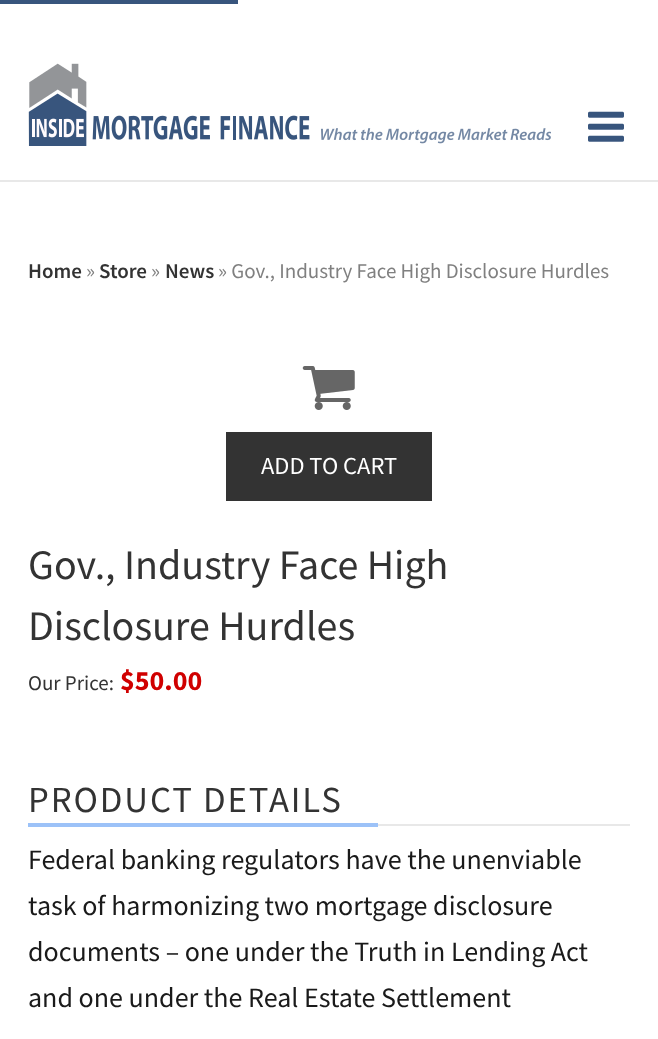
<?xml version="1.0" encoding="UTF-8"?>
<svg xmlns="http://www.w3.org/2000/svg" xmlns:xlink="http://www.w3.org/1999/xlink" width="658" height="1039">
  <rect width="100%" height="100%" fill="#ffffff" />
  <rect width="238" height="4" fill="#38557d" />
  <image x="28" y="63" width="523" height="83" xlink:href="image1.png" />
  <image x="588" y="111" width="36" height="31" xlink:href="image2.png" />
  <rect y="180" width="658" height="2" fill="#e8e8e8" />
  <image x="302" y="366" width="53" height="44" xlink:href="image3.png" />
  <rect x="226" y="432" width="206" height="69" fill="#333333" />
  <rect x="378" y="824" width="252" height="2" fill="#e8e8e8" />
  <rect x="28" y="823" width="350" height="4" fill="#9cc2f8" />
  <text x="28" y="278" style="font-family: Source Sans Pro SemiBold; font-size: 21px; font-weight: 600; fill: #333333">Home</text>
  <text x="86" y="278" style="font-family: Source Sans Pro; font-size: 21px; fill: #808080">»</text>
  <text x="99" y="278" style="font-family: Source Sans Pro SemiBold; font-size: 21px; font-weight: 600; fill: #333333">Store</text>
  <text x="151" y="278" style="font-family: Source Sans Pro; font-size: 21px; fill: #808080">»</text>
  <text x="165" y="278" style="font-family: Source Sans Pro SemiBold; font-size: 21px; font-weight: 600; fill: #333333">News</text>
  <text x="218" y="278" style="font-family: Source Sans Pro; font-size: 21px; fill: #808080">» Gov., Industry Face High Disclosure Hurdles</text>
  <text x="261" y="474" style="font-family: Source Sans Pro; font-size: 24.5px; fill: #ffffff">ADD TO CART</text>
  <text x="28" y="579" style="font-family: Source Sans Pro; font-size: 42px; fill: #333333">Gov., Industry Face High</text>
  <text x="28" y="640" style="font-family: Source Sans Pro; font-size: 42px; fill: #333333">Disclosure Hurdles</text>
  <text x="28" y="690" style="font-family: Source Sans Pro; font-size: 21px; fill: #333333">Our Price:</text>
  <text x="120" y="690" style="font-family: Source Sans Pro; font-size: 28px; font-weight: bold; fill: #d00000">$50.00</text>
  <text x="28" y="812" style="font-family: Source Sans Pro; font-size: 36.75px; letter-spacing: 1.9px; fill: #333333">PRODUCT DETAILS</text>
  <text x="28" y="869" style="font-family: Source Sans Pro; font-size: 28px; fill: #1a1a1a">Federal banking regulators have the unenviable</text>
  <text x="28" y="915" style="font-family: Source Sans Pro; font-size: 28px; fill: #1a1a1a">task of harmonizing two mortgage disclosure</text>
  <text x="28" y="961" style="font-family: Source Sans Pro; font-size: 28px; fill: #1a1a1a">documents – one under the Truth in Lending Act</text>
  <text x="28" y="1007" style="font-family: Source Sans Pro; font-size: 28px; fill: #1a1a1a">and one under the Real Estate Settlement</text>
</svg>
